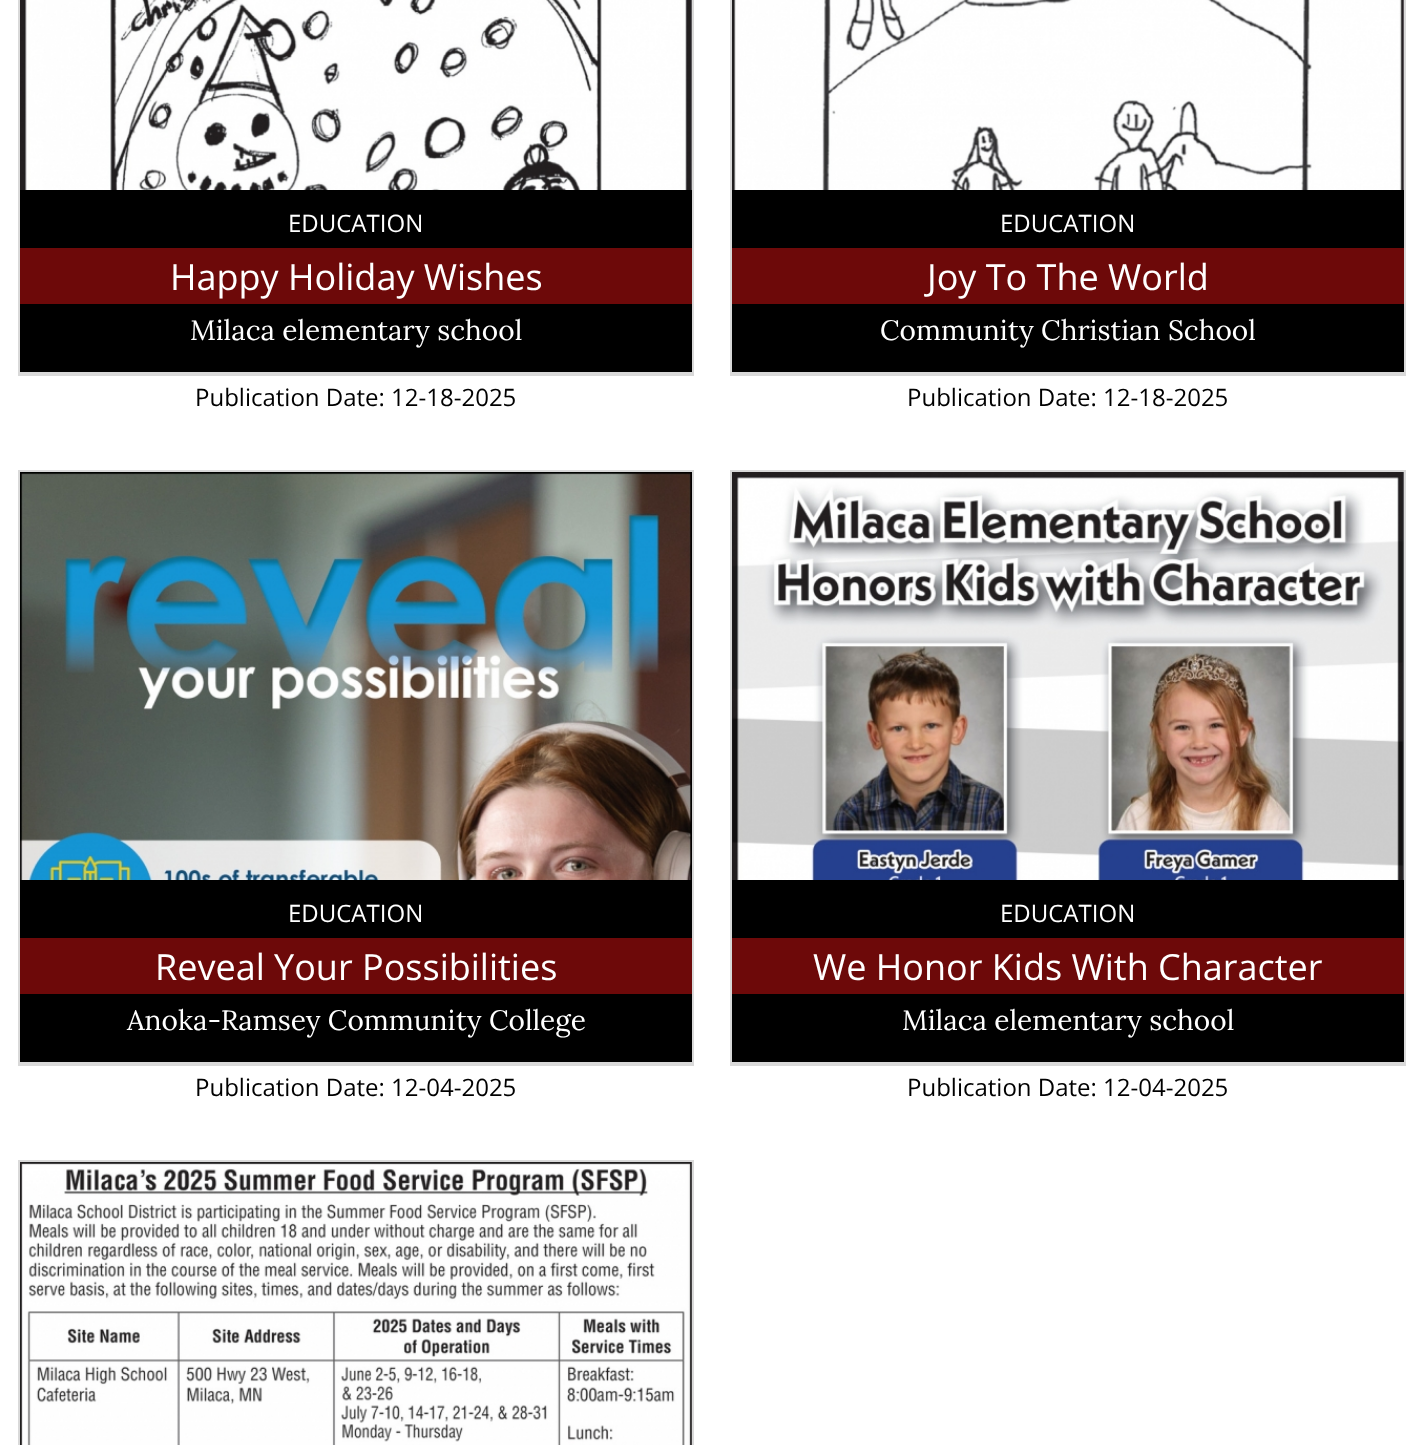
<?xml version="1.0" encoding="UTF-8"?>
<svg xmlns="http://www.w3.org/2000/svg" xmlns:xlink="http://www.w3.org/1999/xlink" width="1426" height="1445">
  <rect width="100%" height="100%" fill="#ffffff" />
  <rect x="19" y="-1" width="674" height="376" fill="none" stroke="#d9d9d9" stroke-width="2" />
  <rect x="20" y="372" width="672" height="2" fill="#d9d9d9" />
  <image x="20" y="0" width="672" height="190" xlink:href="image1.png" />
  <rect x="20" y="190" width="672" height="182" fill="#000000" />
  <rect x="20" y="248" width="672" height="56" fill="#6d0909" />
  <rect x="731" y="-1" width="674" height="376" fill="none" stroke="#d9d9d9" stroke-width="2" />
  <rect x="732" y="372" width="672" height="2" fill="#d9d9d9" />
  <image x="732" y="0" width="672" height="190" xlink:href="image2.png" />
  <rect x="732" y="190" width="672" height="182" fill="#000000" />
  <rect x="732" y="248" width="672" height="56" fill="#6d0909" />
  <rect x="19" y="471" width="674" height="594" fill="none" stroke="#d9d9d9" stroke-width="2" />
  <rect x="20" y="1062" width="672" height="2" fill="#d9d9d9" />
  <image x="20" y="472" width="672" height="408" xlink:href="image3.png" />
  <rect x="20" y="880" width="672" height="182" fill="#000000" />
  <rect x="20" y="938" width="672" height="56" fill="#6d0909" />
  <rect x="731" y="471" width="674" height="594" fill="none" stroke="#d9d9d9" stroke-width="2" />
  <rect x="732" y="1062" width="672" height="2" fill="#d9d9d9" />
  <image x="732" y="472" width="672" height="408" xlink:href="image4.png" />
  <rect x="732" y="880" width="672" height="182" fill="#000000" />
  <rect x="732" y="938" width="672" height="56" fill="#6d0909" />
  <rect x="19" y="1161" width="674" height="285" fill="none" stroke="#d9d9d9" stroke-width="2" />
  <image x="20" y="1162" width="672" height="283" xlink:href="image5.png" />
  <text x="288" y="232" style="font-family: Open Sans; font-size: 24px; fill: #ffffff">EDUCATION</text>
  <text x="170" y="290" style="font-family: Open Sans; font-size: 36px; fill: #ffffff">Happy Holiday Wishes</text>
  <text x="190" y="340" style="font-family: Lora; font-size: 28px; fill: #ffffff">Milaca elementary school</text>
  <text x="195" y="406" style="font-family: Open Sans; font-size: 24px; fill: #000000">Publication Date: 12-18-2025</text>
  <text x="1000" y="232" style="font-family: Open Sans; font-size: 24px; fill: #ffffff">EDUCATION</text>
  <text x="927" y="290" style="font-family: Open Sans; font-size: 36px; fill: #ffffff">Joy To The World</text>
  <text x="880" y="340" style="font-family: Lora; font-size: 28px; fill: #ffffff">Community Christian School</text>
  <text x="907" y="406" style="font-family: Open Sans; font-size: 24px; fill: #000000">Publication Date: 12-18-2025</text>
  <text x="288" y="922" style="font-family: Open Sans; font-size: 24px; fill: #ffffff">EDUCATION</text>
  <text x="155" y="980" style="font-family: Open Sans; font-size: 36px; fill: #ffffff">Reveal Your Possibilities</text>
  <text x="127" y="1030" style="font-family: Lora; font-size: 28px; fill: #ffffff">Anoka-Ramsey Community College</text>
  <text x="195" y="1096" style="font-family: Open Sans; font-size: 24px; fill: #000000">Publication Date: 12-04-2025</text>
  <text x="1000" y="922" style="font-family: Open Sans; font-size: 24px; fill: #ffffff">EDUCATION</text>
  <text x="813" y="980" style="font-family: Open Sans; font-size: 36px; fill: #ffffff">We Honor Kids With Character</text>
  <text x="902" y="1030" style="font-family: Lora; font-size: 28px; fill: #ffffff">Milaca elementary school</text>
  <text x="907" y="1096" style="font-family: Open Sans; font-size: 24px; fill: #000000">Publication Date: 12-04-2025</text>
</svg>
